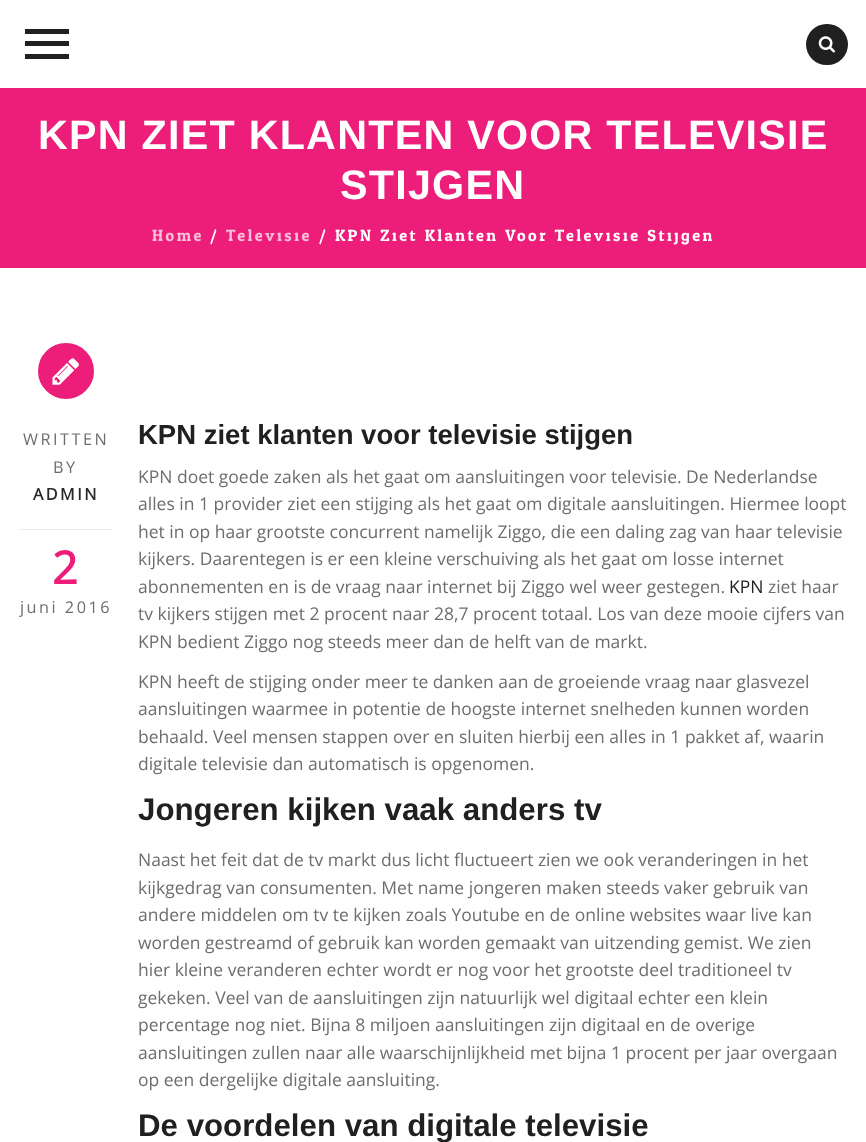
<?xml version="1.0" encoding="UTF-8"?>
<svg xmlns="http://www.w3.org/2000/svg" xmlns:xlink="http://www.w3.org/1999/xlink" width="866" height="1142">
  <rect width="100%" height="100%" fill="#ed1e79" />
  <rect width="866" height="88" fill="#ffffff" />
  <rect x="25" y="41" width="44" height="5" fill="#202020" />
  <rect x="25" y="29" width="44" height="5" fill="#202020" />
  <rect x="25" y="54" width="44" height="5" fill="#202020" />
  <rect x="806" y="24" width="42" height="41" rx="20.5" fill="#202020" />
  <image x="818" y="36" width="17" height="17" xlink:href="image1.png" />
  <rect y="268" width="866" height="874" fill="#ffffff" />
  <circle cx="66" cy="371" r="32.5" fill="#ed1e79" stroke="#ffffff" stroke-width="9" />
  <image x="52" y="358" width="27" height="27" xlink:href="image2.png" />
  <rect x="19" y="529" width="94" height="1" fill="#eaeaea" />
  <text x="38" y="149" style="font-family: Arimo; font-size: 41.25px; font-weight: bold; letter-spacing: 1.25px; fill: #ffffff">KPN ZIET KLANTEN VOOR TELEVISIE</text>
  <text x="340" y="199" style="font-family: Arimo; font-size: 41.25px; font-weight: bold; letter-spacing: 1.25px; fill: #ffffff">STIJGEN</text>
  <text x="152" y="241" style="font-family: Odor Mean Chey; font-size: 16.25px; letter-spacing: 2.5px; fill: #fac0d9">Home</text>
  <text x="210" y="241" style="font-family: Odor Mean Chey; font-size: 16.25px; letter-spacing: 2.5px; fill: #ffffff">/</text>
  <text x="226" y="241" style="font-family: Odor Mean Chey; font-size: 16.25px; letter-spacing: 2.5px; fill: #fac0d9">Televisie</text>
  <text x="319" y="241" style="font-family: Odor Mean Chey; font-size: 16.25px; letter-spacing: 2.5px; fill: #ffffff">/ KPN Ziet Klanten Voor Televisie Stijgen</text>
  <text x="23" y="445" style="font-family: Open Sans; font-size: 16.25px; letter-spacing: 2.5px; fill: #6d6d6d">WRITTEN</text>
  <text x="53" y="473" style="font-family: Open Sans; font-size: 16.25px; letter-spacing: 2.5px; fill: #6d6d6d">BY</text>
  <text x="33" y="500" style="font-family: Open Sans; font-size: 16.25px; font-weight: bold; letter-spacing: 2.5px; fill: #282828">ADMIN</text>
  <text x="52" y="584" style="font-family: Open Sans; font-size: 45px; font-weight: bold; letter-spacing: 2.5px; fill: #ed1e79">2</text>
  <text x="20" y="613" style="font-family: Open Sans; font-size: 16.25px; letter-spacing: 2.5px; fill: #6d6d6d">juni 2016</text>
  <text x="138" y="444" style="font-family: Arimo; font-size: 27.5px; font-weight: bold; fill: #202020">KPN ziet klanten voor televisie stijgen</text>
  <text x="138" y="483" style="font-family: Open Sans; font-size: 17.5px; fill: #6d6d6d">KPN doet goede zaken als het gaat om aansluitingen voor televisie. De Nederlandse</text>
  <text x="138" y="510" style="font-family: Open Sans; font-size: 17.5px; fill: #6d6d6d">alles in 1 provider ziet een stijging als het gaat om digitale aansluitingen. Hiermee loopt</text>
  <text x="138" y="538" style="font-family: Open Sans; font-size: 17.5px; fill: #6d6d6d">het in op haar grootste concurrent namelijk Ziggo, die een daling zag van haar televisie</text>
  <text x="138" y="565" style="font-family: Open Sans; font-size: 17.5px; fill: #6d6d6d">kijkers. Daarentegen is er een kleine verschuiving als het gaat om losse internet</text>
  <text x="138" y="593" style="font-family: Open Sans; font-size: 17.5px; fill: #6d6d6d">abonnementen en is de vraag naar internet bij Ziggo wel weer gestegen.</text>
  <text x="729" y="593" style="font-family: Open Sans; font-size: 17.5px; fill: #202020">KPN</text>
  <text x="768" y="593" style="font-family: Open Sans; font-size: 17.5px; fill: #6d6d6d">ziet haar</text>
  <text x="138" y="620" style="font-family: Open Sans; font-size: 17.5px; fill: #6d6d6d">tv kijkers stijgen met 2 procent naar 28,7 procent totaal. Los van deze mooie cijfers van</text>
  <text x="138" y="648" style="font-family: Open Sans; font-size: 17.5px; fill: #6d6d6d">KPN bedient Ziggo nog steeds meer dan de helft van de markt.</text>
  <text x="138" y="688" style="font-family: Open Sans; font-size: 17.5px; fill: #6d6d6d">KPN heeft de stijging onder meer te danken aan de groeiende vraag naar glasvezel</text>
  <text x="138" y="715" style="font-family: Open Sans; font-size: 17.5px; fill: #6d6d6d">aansluitingen waarmee in potentie de hoogste internet snelheden kunnen worden</text>
  <text x="138" y="743" style="font-family: Open Sans; font-size: 17.5px; fill: #6d6d6d">behaald. Veel mensen stappen over en sluiten hierbij een alles in 1 pakket af, waarin</text>
  <text x="138" y="770" style="font-family: Open Sans; font-size: 17.5px; fill: #6d6d6d">digitale televisie dan automatisch is opgenomen.</text>
  <text x="138" y="820" style="font-family: Arimo; font-size: 31.25px; font-weight: bold; fill: #202020">Jongeren kijken vaak anders tv</text>
  <text x="138" y="866" style="font-family: Open Sans; font-size: 17.5px; fill: #6d6d6d">Naast het feit dat de tv markt dus licht fluctueert zien we ook veranderingen in het</text>
  <text x="138" y="894" style="font-family: Open Sans; font-size: 17.5px; fill: #6d6d6d">kijkgedrag van consumenten. Met name jongeren maken steeds vaker gebruik van</text>
  <text x="138" y="921" style="font-family: Open Sans; font-size: 17.5px; fill: #6d6d6d">andere middelen om tv te kijken zoals Youtube en de online websites waar live kan</text>
  <text x="138" y="949" style="font-family: Open Sans; font-size: 17.5px; fill: #6d6d6d">worden gestreamd of gebruik kan worden gemaakt van uitzending gemist. We zien</text>
  <text x="138" y="976" style="font-family: Open Sans; font-size: 17.5px; fill: #6d6d6d">hier kleine veranderen echter wordt er nog voor het grootste deel traditioneel tv</text>
  <text x="138" y="1004" style="font-family: Open Sans; font-size: 17.5px; fill: #6d6d6d">gekeken. Veel van de aansluitingen zijn natuurlijk wel digitaal echter een klein</text>
  <text x="138" y="1031" style="font-family: Open Sans; font-size: 17.5px; fill: #6d6d6d">percentage nog niet. Bijna 8 miljoen aansluitingen zijn digitaal en de overige</text>
  <text x="138" y="1059" style="font-family: Open Sans; font-size: 17.5px; fill: #6d6d6d">aansluitingen zullen naar alle waarschijnlijkheid met bijna 1 procent per jaar overgaan</text>
  <text x="138" y="1086" style="font-family: Open Sans; font-size: 17.5px; fill: #6d6d6d">op een dergelijke digitale aansluiting.</text>
  <text x="138" y="1136" style="font-family: Arimo; font-size: 31.25px; font-weight: bold; fill: #202020">De voordelen van digitale televisie</text>
</svg>
